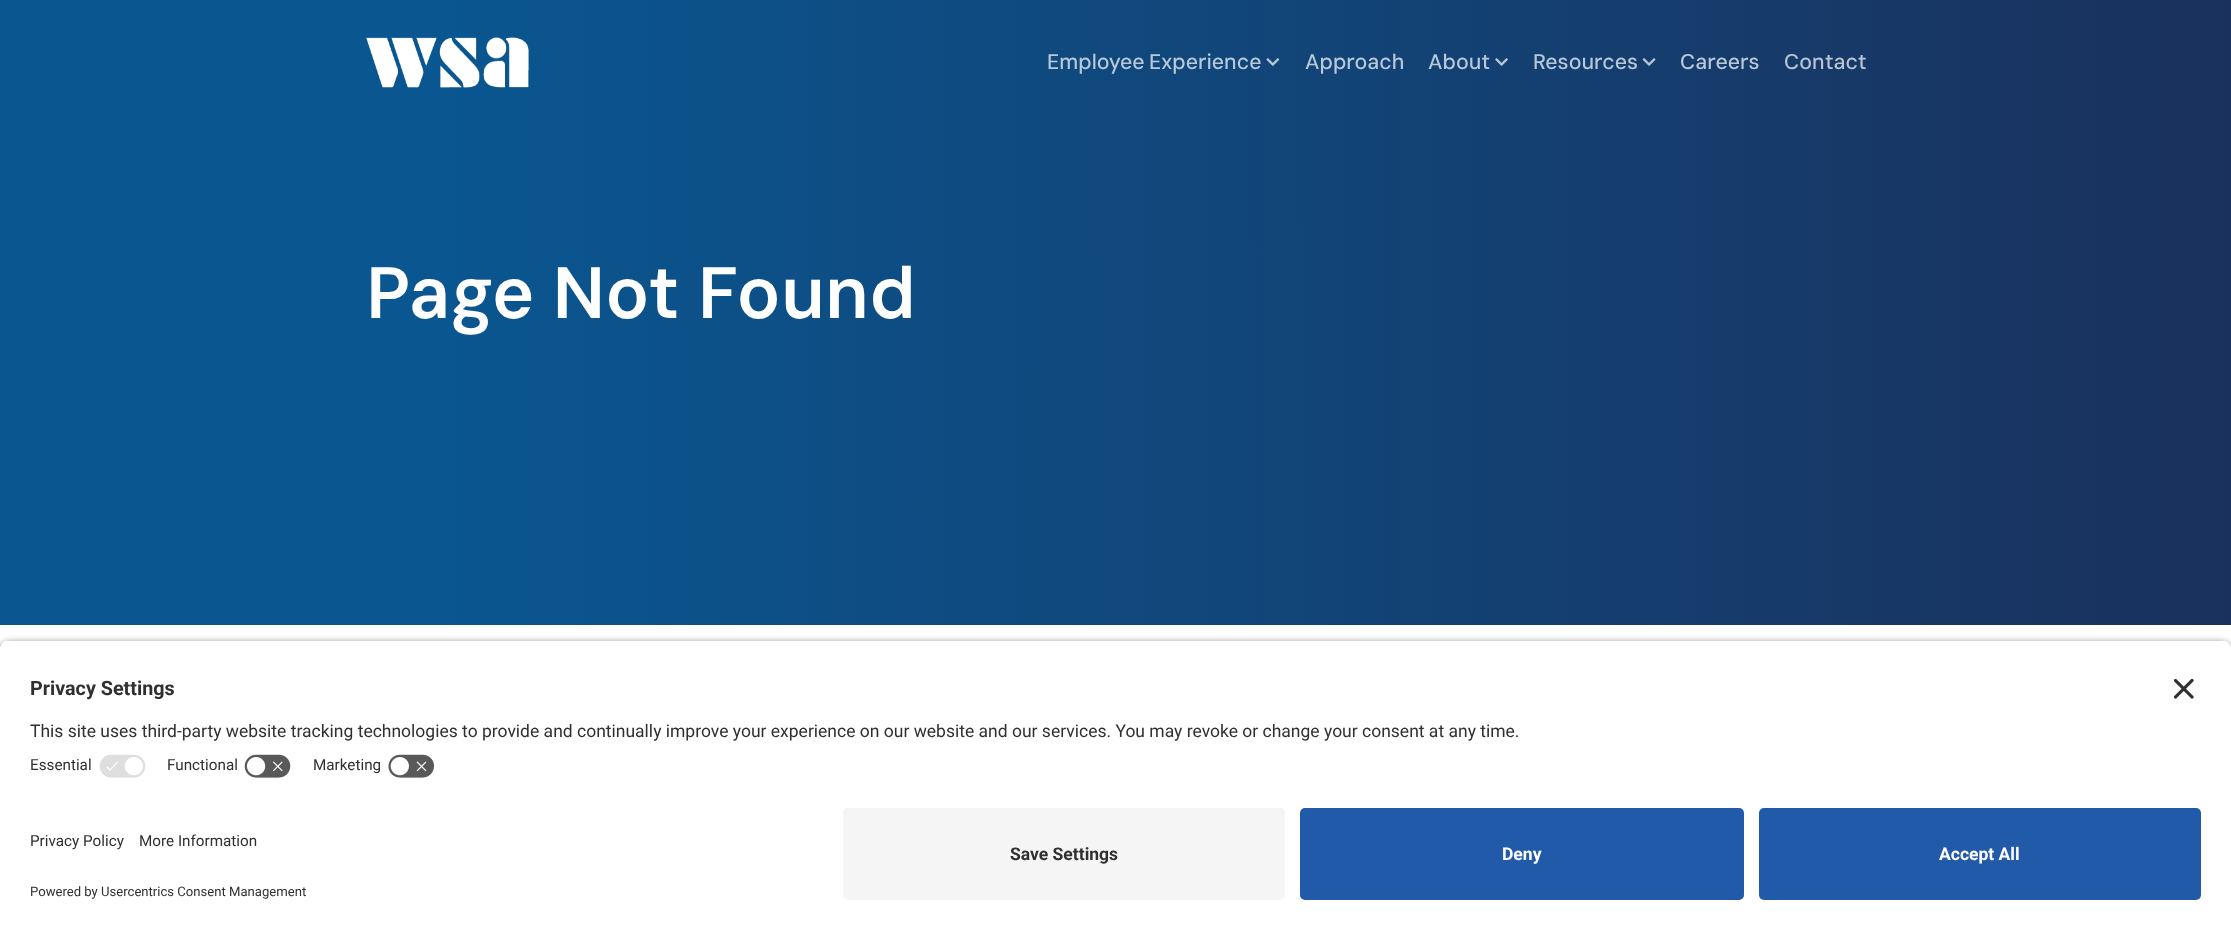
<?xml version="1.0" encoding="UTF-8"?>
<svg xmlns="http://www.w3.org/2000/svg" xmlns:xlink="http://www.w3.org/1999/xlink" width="2231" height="930">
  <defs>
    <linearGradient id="g1" gradientUnits="userSpaceOnUse" x1="0" y1="313" x2="2231" y2="312"><stop offset="0.2" stop-color="#0a5690" /><stop offset="1" stop-color="#1a315d" /></linearGradient>
    <clipPath id="clip1"><path d="M 10 640 h 2211 c 5.5 0 10 4.5 10 10 v 148 h -2231 v -148 c 0 -5.5 4.5 -10 10 -10 z" /></clipPath>
  </defs>
  <rect width="100%" height="100%" fill="#ffffff" />
  <rect width="2231" height="625" fill="url(#g1)" />
  <image x="366" y="37" width="163" height="51" xlink:href="image1.png" />
  <image x="1266" y="58" width="14" height="8" xlink:href="image2.png" />
  <image x="1495" y="58" width="13" height="8" xlink:href="image3.png" />
  <image x="1642" y="58" width="14" height="8" xlink:href="image4.png" />
  <rect y="644" width="2231" height="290" rx="10" fill="#000000" fill-opacity="0.8" filter="blur(4.5px)" />
  <g clip-path="url(#clip1)">
    <rect y="641" width="2231" height="157" fill="#ffffff" />
    <rect y="641" width="2231" height="107" fill="#ffffff" />
  </g>
  <image x="2174" y="679" width="20" height="20" xlink:href="image5.png" />
  <image x="99" y="754" width="47" height="24" xlink:href="image6.png" />
  <image x="244" y="754" width="47" height="25" xlink:href="image7.png" />
  <image x="387" y="754" width="48" height="25" xlink:href="image8.png" />
  <rect y="798" width="2231" height="132" fill="#ffffff" />
  <rect x="843" y="808" width="442" height="92" rx="5" fill="#f5f5f5" />
  <rect x="1300" y="808" width="444" height="92" rx="5" fill="#205aa9" />
  <rect x="1759" y="808" width="442" height="92" rx="5" fill="#205aa9" />
  <text x="1047" y="69" word-spacing="-1" style="font-family: DM Sans; font-size: 21.25px; font-weight: 500; fill: #b7c8d8">Employee Experience</text>
  <text x="1305" y="69" style="font-family: DM Sans; font-size: 21.25px; font-weight: 500; fill: #b7c8d8">Approach</text>
  <text x="1428" y="69" style="font-family: DM Sans; font-size: 21.25px; font-weight: 500; fill: #b7c8d8">About</text>
  <text x="1533" y="69" style="font-family: DM Sans; font-size: 21.25px; font-weight: 500; fill: #b7c8d8">Resources</text>
  <text x="1680" y="69" style="font-family: DM Sans; font-size: 21.25px; font-weight: 500; fill: #b7c8d8">Careers</text>
  <text x="1784" y="69" style="font-family: DM Sans; font-size: 21.25px; font-weight: 500; fill: #b9c4d2">Contact</text>
  <text x="366" y="318" style="font-family: DM Sans; font-size: 72.5px; font-weight: 600; fill: #ffffff">Page Not Found</text>
  <text x="30" y="695" style="font-family: Roboto; font-size: 19.75px; font-weight: bold; fill: #303030">Privacy Settings</text>
  <text x="30" y="737" style="font-family: Roboto; font-size: 17.5px; fill: #303030">This site uses third-party website tracking technologies to provide and continually improve your experience on our website and our services. You may revoke or change your consent at any time.</text>
  <text x="30" y="770" style="font-family: Roboto; font-size: 15.25px; fill: #303030">Essential</text>
  <text x="167" y="770" style="font-family: Roboto; font-size: 15.25px; fill: #303030">Functional</text>
  <text x="313" y="770" style="font-family: Roboto; font-size: 15.25px; fill: #303030">Marketing</text>
  <text x="30" y="846" style="font-family: Roboto; font-size: 15.25px; fill: #303030">Privacy Policy</text>
  <text x="139" y="846" style="font-family: Roboto; font-size: 15.25px; fill: #303030">More Information</text>
  <text x="30" y="896" style="font-family: Roboto; font-size: 13.1px; fill: #303030">Powered by Usercentrics Consent Management</text>
  <text x="1010" y="860" style="font-family: Roboto; font-size: 17.5px; font-weight: bold; fill: #303030">Save Settings</text>
  <text x="1502" y="860" style="font-family: Roboto; font-size: 17.5px; font-weight: bold; fill: #ffffff">Deny</text>
  <text x="1939" y="860" style="font-family: Roboto; font-size: 17.5px; font-weight: bold; fill: #ffffff">Accept All</text>
</svg>
